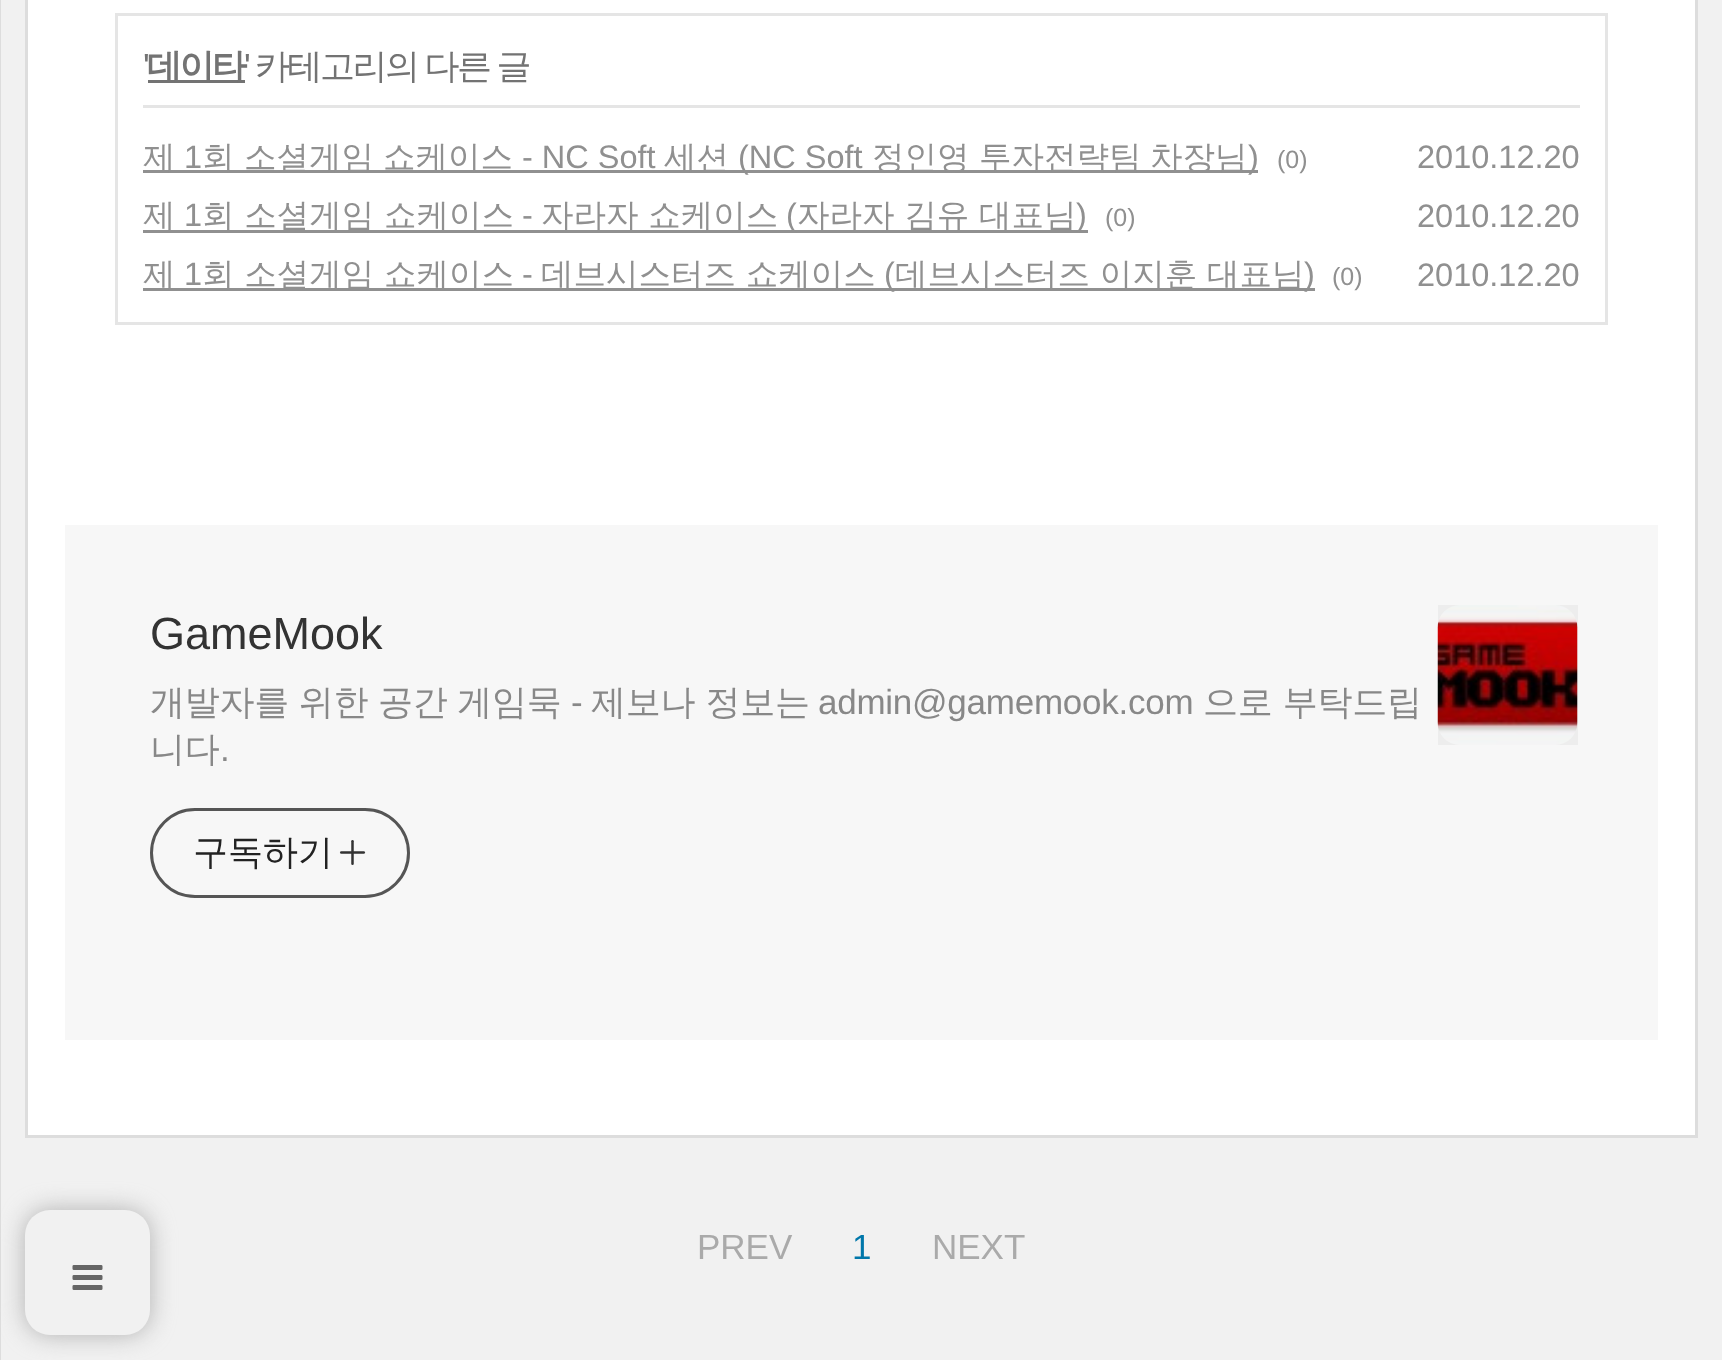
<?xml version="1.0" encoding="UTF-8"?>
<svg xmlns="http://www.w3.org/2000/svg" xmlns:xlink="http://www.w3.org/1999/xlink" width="1722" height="1360">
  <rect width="100%" height="100%" fill="#f1f1f1" />
  <rect width="1" height="1360" fill="#dddddd" />
  <rect x="25" y="1210" width="125" height="125" rx="25" fill="#aaaaaa" fill-opacity="0.9" filter="blur(12.5px)" />
  <rect x="25" y="1210" width="125" height="125" rx="25" fill="#f1f1f1" />
  <image x="72" y="1265" width="31" height="25" xlink:href="image1.png" />
  <rect x="26.5" y="-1.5" width="1670" height="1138" fill="#ffffff" stroke="#dddddd" stroke-width="3" />
  <rect x="116.5" y="14.5" width="1490" height="309" fill="none" stroke="#e5e5e5" stroke-width="3" />
  <rect x="143" y="105" width="1437" height="3" fill="#e5e5e5" />
  <rect x="148" y="80" width="97" height="3" fill="#737373" />
  <rect x="143" y="170" width="1115" height="3" fill="#909090" />
  <rect x="143" y="230" width="945" height="3" fill="#909090" />
  <rect x="143" y="288" width="1172" height="3" fill="#909090" />
  <rect x="65" y="525" width="1593" height="515" fill="#f7f7f7" />
  <rect x="151.5" y="809.5" width="257" height="87" rx="43.5" fill="none" stroke="#555555" stroke-width="3" />
  <image x="339" y="840" width="27" height="25" xlink:href="image2.png" />
  <image x="1437" y="605" width="141" height="140" xlink:href="image3.png" />
  <rect x="1438" y="605" width="140" height="140" fill="#000000" fill-opacity="0.04" />
  <text x="143" y="78" style="font-family: Liberation Sans; font-size: 35px; letter-spacing: -2.5px; fill: #737373">'</text>
  <text x="147" y="78" style="font-family: WenQuanYi Zen Hei; font-size: 35px; font-weight: bold; letter-spacing: -2.5px; fill: #737373">데이타</text>
  <text x="244" y="78" style="font-family: Liberation Sans; font-size: 35px; letter-spacing: -2.5px; fill: #737373">'</text>
  <text x="255" y="78" word-spacing="-1" style="font-family: WenQuanYi Zen Hei; font-size: 35px; font-weight: 500; letter-spacing: -2.5px; fill: #737373">카테고리의 다른 글</text>
  <text x="143" y="168" style="font-family: WenQuanYi Zen Hei; font-size: 32.5px; font-weight: 500; fill: #909090">제</text>
  <text x="184" y="168" style="font-family: Liberation Sans; font-size: 32.5px; fill: #909090">1</text>
  <text x="202" y="168" style="font-family: WenQuanYi Zen Hei; font-size: 32.5px; font-weight: 500; fill: #909090">회</text>
  <text x="244" y="168" style="font-family: WenQuanYi Zen Hei; font-size: 32.5px; font-weight: 500; fill: #909090">소셜게임</text>
  <text x="383" y="168" style="font-family: WenQuanYi Zen Hei; font-size: 32.5px; font-weight: 500; fill: #909090">쇼케이스</text>
  <text x="522" y="168" style="font-family: Liberation Sans; font-size: 32.5px; fill: #909090">- NC Soft</text>
  <text x="664" y="168" style="font-family: WenQuanYi Zen Hei; font-size: 32.5px; font-weight: 500; fill: #909090">세션</text>
  <text x="738" y="168" style="font-family: Liberation Sans; font-size: 32.5px; fill: #909090">(NC Soft</text>
  <text x="872" y="168" style="font-family: WenQuanYi Zen Hei; font-size: 32.5px; font-weight: 500; fill: #909090">정인영</text>
  <text x="979" y="168" style="font-family: WenQuanYi Zen Hei; font-size: 32.5px; font-weight: 500; fill: #909090">투자전략팀</text>
  <text x="1150" y="168" style="font-family: WenQuanYi Zen Hei; font-size: 32.5px; font-weight: 500; fill: #909090">차장님</text>
  <text x="1248" y="168" style="font-family: Liberation Sans; font-size: 32.5px; fill: #909090">)</text>
  <text x="1277" y="168" style="font-family: Liberation Sans; font-size: 25px; fill: #909090">(0)</text>
  <text x="1417" y="168" style="font-family: Liberation Sans; font-size: 32.5px; fill: #909090">2010.12.20</text>
  <text x="143" y="226" style="font-family: WenQuanYi Zen Hei; font-size: 32.5px; font-weight: 500; fill: #909090">제</text>
  <text x="184" y="226" style="font-family: Liberation Sans; font-size: 32.5px; fill: #909090">1</text>
  <text x="202" y="226" style="font-family: WenQuanYi Zen Hei; font-size: 32.5px; font-weight: 500; fill: #909090">회 소셜게임 쇼케이스</text>
  <text x="522" y="226" style="font-family: Liberation Sans; font-size: 32.5px; fill: #909090">-</text>
  <text x="541" y="226" style="font-family: WenQuanYi Zen Hei; font-size: 32.5px; font-weight: 500; fill: #909090">자라자 쇼케이스</text>
  <text x="786" y="226" style="font-family: Liberation Sans; font-size: 32.5px; fill: #909090">(</text>
  <text x="797" y="226" style="font-family: WenQuanYi Zen Hei; font-size: 32.5px; font-weight: 500; fill: #909090">자라자 김유 대표님</text>
  <text x="1076" y="226" style="font-family: Liberation Sans; font-size: 32.5px; fill: #909090">)</text>
  <text x="1105" y="226" style="font-family: Liberation Sans; font-size: 25px; fill: #909090">(0)</text>
  <text x="1417" y="227" style="font-family: Liberation Sans; font-size: 32.5px; fill: #909090">2010.12.20</text>
  <text x="143" y="285" style="font-family: WenQuanYi Zen Hei; font-size: 32.5px; font-weight: 500; fill: #909090">제</text>
  <text x="184" y="285" style="font-family: Liberation Sans; font-size: 32.5px; fill: #909090">1</text>
  <text x="202" y="285" style="font-family: WenQuanYi Zen Hei; font-size: 32.5px; font-weight: 500; fill: #909090">회 소셜게임 쇼케이스</text>
  <text x="522" y="285" style="font-family: Liberation Sans; font-size: 32.5px; fill: #909090">-</text>
  <text x="541" y="285" style="font-family: WenQuanYi Zen Hei; font-size: 32.5px; font-weight: 500; fill: #909090">데브시스터즈 쇼케이스</text>
  <text x="884" y="285" style="font-family: Liberation Sans; font-size: 32.5px; fill: #909090">(</text>
  <text x="895" y="285" style="font-family: WenQuanYi Zen Hei; font-size: 32.5px; font-weight: 500; fill: #909090">데브시스터즈 이지훈 대표님</text>
  <text x="1304" y="285" style="font-family: Liberation Sans; font-size: 32.5px; fill: #909090">)</text>
  <text x="1332" y="285" style="font-family: Liberation Sans; font-size: 25px; fill: #909090">(0)</text>
  <text x="1417" y="286" style="font-family: Liberation Sans; font-size: 32.5px; fill: #909090">2010.12.20</text>
  <text x="150" y="649" style="font-family: Liberation Sans; font-size: 45px; fill: #333333">GameMook</text>
  <text x="150" y="714" word-spacing="-0.5" style="font-family: WenQuanYi Zen Hei; font-size: 35px; font-weight: 500; letter-spacing: -0.25px; fill: #888888">개발자를 위한 공간 게임묵</text>
  <text x="571" y="714" style="font-family: Liberation Sans; font-size: 35px; letter-spacing: -0.25px; fill: #888888">-</text>
  <text x="591" y="714" style="font-family: WenQuanYi Zen Hei; font-size: 35px; font-weight: 500; letter-spacing: -0.25px; fill: #888888">제보나 정보는</text>
  <text x="818" y="714" style="font-family: Liberation Sans; font-size: 35px; letter-spacing: -0.25px; fill: #888888">admin@gamemook.com</text>
  <text x="1203" y="714" style="font-family: WenQuanYi Zen Hei; font-size: 35px; font-weight: 500; letter-spacing: -0.25px; fill: #888888">으로 부탁드립</text>
  <text x="150" y="761" style="font-family: WenQuanYi Zen Hei; font-size: 35px; font-weight: 500; letter-spacing: -0.25px; fill: #888888">니다</text>
  <text x="220" y="761" style="font-family: Liberation Sans; font-size: 35px; letter-spacing: -0.25px; fill: #888888">.</text>
  <text x="193" y="864" style="font-family: WenQuanYi Zen Hei; font-size: 35px; font-weight: 500; fill: #222222">구독하기</text>
  <text x="697" y="1259" style="font-family: Liberation Sans; font-size: 35px; fill: #aaaaaa">PREV</text>
  <text x="852" y="1259" style="font-family: Liberation Sans; font-size: 35px; fill: #0077aa">1</text>
  <text x="932" y="1259" style="font-family: Liberation Sans; font-size: 35px; fill: #aaaaaa">NEXT</text>
</svg>
